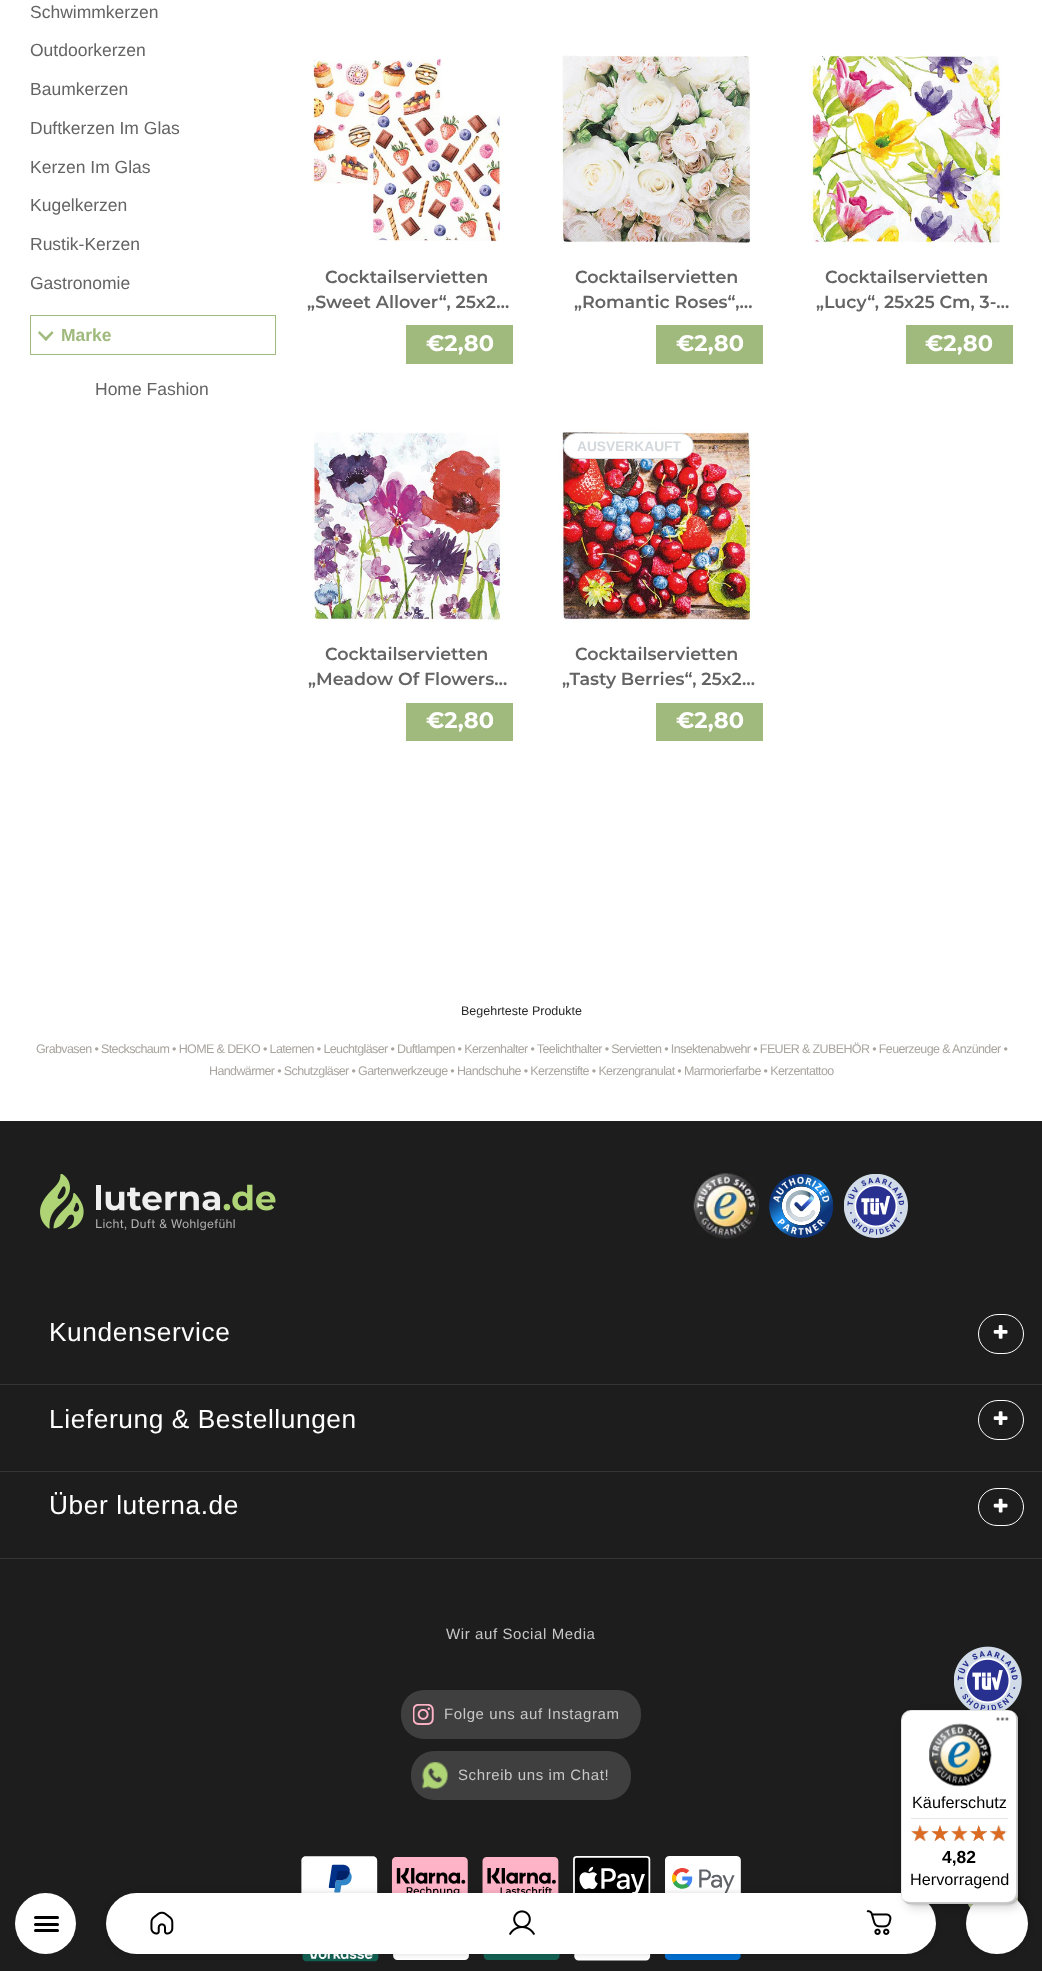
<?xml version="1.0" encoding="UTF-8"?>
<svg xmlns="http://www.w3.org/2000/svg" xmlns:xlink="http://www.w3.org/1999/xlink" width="1042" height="1971">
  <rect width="100%" height="100%" fill="#ffffff" />
  <rect x="30.5" y="315.5" width="245" height="39" fill="none" stroke="#a0b97c" />
  <path d="M 53.5 333 l -7.5 8 l -2 -2 l 8 -8 z" fill="#a0b97c" />
  <path d="M 47.5 339 l -1.5 2 l -8 -8 l 1.5 -2 z" fill="#a0b97c" />
  <image x="311" y="58" width="192" height="184" xlink:href="image1.png" />
  <rect x="406" y="325" width="107" height="39" fill="#a0b97c" />
  <image x="561" y="54" width="192" height="192" xlink:href="image2.png" />
  <rect x="656" y="325" width="107" height="39" fill="#a0b97c" />
  <image x="809" y="53" width="194" height="192" xlink:href="image3.png" />
  <rect x="906" y="325" width="107" height="39" fill="#a0b97c" />
  <image x="311" y="430" width="192" height="193" xlink:href="image4.png" />
  <rect x="406" y="703" width="107" height="38" fill="#a0b97c" />
  <image x="559" y="429" width="194" height="194" xlink:href="image5.png" />
  <rect x="563.5" y="433.5" width="130" height="25" rx="12.5" fill="#ffffff" stroke="#d2d8db" />
  <rect x="656" y="703" width="107" height="38" fill="#a0b97c" />
  <rect y="1121" width="1042" height="850" fill="#1d1d1d" />
  <image x="40" y="1174" width="236" height="57" xlink:href="image6.png" />
  <image x="693" y="1173" width="66" height="66" xlink:href="image7.png" />
  <image x="769" y="1174" width="65" height="64" xlink:href="image8.png" />
  <image x="844" y="1174" width="64" height="64" xlink:href="image9.png" />
  <rect y="1384" width="1042" height="1" fill="#343434" />
  <rect x="978.5" y="1314.5" width="45" height="39" rx="19.5" fill="none" stroke="#ffffff" />
  <image x="993" y="1325" width="15" height="14" xlink:href="image10.png" />
  <rect y="1471" width="1042" height="1" fill="#343434" />
  <rect x="978.5" y="1400.5" width="45" height="39" rx="19.5" fill="none" stroke="#ffffff" />
  <image x="993" y="1411" width="15" height="14" xlink:href="image11.png" />
  <rect y="1558" width="1042" height="1" fill="#343434" />
  <rect x="978.5" y="1488.5" width="45" height="37" rx="18.5" fill="none" stroke="#ffffff" />
  <image x="993" y="1498" width="15" height="15" xlink:href="image12.png" />
  <rect x="401" y="1690" width="240" height="49" rx="23" fill="#3f3f3f" />
  <image x="413" y="1704" width="21" height="21" xlink:href="image13.png" />
  <rect x="411" y="1751" width="220" height="49" rx="23" fill="#3f3f3f" />
  <image x="422" y="1762" width="26" height="27" xlink:href="image14.png" />
  <image x="301" y="1856" width="440" height="106" xlink:href="image15.png" />
  <image x="954" y="1646" width="68" height="64" xlink:href="image16.png" />
  <rect x="968" y="1859" width="50" height="50" rx="6" fill="#becf9a" />
  <rect x="106" y="1893" width="830" height="61" rx="30.5" fill="#000000" fill-opacity="0.14" filter="blur(3px)" />
  <rect x="106" y="1893" width="830" height="61" rx="30.5" fill="#ffffff" />
  <image x="866" y="1910" width="26" height="25" xlink:href="image31.png" />
  <rect x="966" y="1893" width="62" height="61" rx="30.5" fill="#000000" fill-opacity="0.14" filter="blur(3px)" />
  <rect x="966" y="1893" width="62" height="61" rx="30.5" fill="#ffffff" />
  <rect x="905" y="1714" width="116" height="194" rx="10" fill="#000000" fill-opacity="0.15" filter="blur(5px)" />
  <rect x="903" y="1711" width="116" height="194" rx="10" fill="#000000" fill-opacity="0.15" filter="blur(1px)" />
  <rect x="901" y="1710" width="117" height="194" rx="10" fill="#ffffff" />
  <path d="M 912 1711 h 97 c 3 0 6 2 8 4 c -2 -3 -5 -5 -9 -5 h -97 c -6 0 -10 4 -10 10 v 174 c 0 3 1 6 3 8 c -1 -2 -2 -4 -2 -7 v -174 c 0 -5 5 -10 10 -10 z" fill="#000000" fill-opacity="0.1" />
  <path d="M 902 1898 c 2 4 5 6 9 6 h 97 c 6 0 10 -4 10 -10 v -174 c 0 -4 -2 -7 -6 -9 c 3 2 4 5 4 8 v 173 c 0 6 -4 10 -10 10 h -96 c -3 0 -6 -1 -8 -4 z" fill="#000000" fill-opacity="0.2" />
  <path d="M 903 1900 c 2 3 5 4 8 4 h 97 c 6 0 10 -4 10 -10 v -174 c 0 -4 -2 -7 -5 -9 c 2 2 4 5 4 8 v 174 c 0 6 -5 10 -10 10 h -97 c -2 0 -5 -1 -7 -3 z" fill="#323232" fill-opacity="0.2" />
  <path d="M 901 1893 v 1 c 0 6 4 10 10 10 h 97 c 6 0 10 -4 10 -10 v -174 c 0 -4 -2 -7 -5 -9 c 2 2 4 5 4 8 v 174 c 0 6 -5 10 -10 10 h -96 c -6 0 -10 -4 -10 -10 z" fill="#ffffff" fill-opacity="0.3" />
  <image x="996" y="1717" width="13" height="4" xlink:href="image17.png" />
  <image x="929" y="1723" width="63" height="64" xlink:href="image18.png" />
  <rect x="911" y="1818" width="97" height="1" fill="#e5e5e5" />
  <image x="911" y="1825" width="18" height="16" xlink:href="image19.png" />
  <image x="931" y="1825" width="18" height="16" xlink:href="image20.png" />
  <image x="951" y="1825" width="17" height="16" xlink:href="image21.png" />
  <image x="970" y="1825" width="17" height="16" xlink:href="image22.png" />
  <image x="990" y="1825" width="18" height="16" xlink:href="image23.png" />
  <image x="911" y="1825" width="18" height="16" xlink:href="image24.png" />
  <image x="931" y="1825" width="18" height="16" xlink:href="image25.png" />
  <image x="951" y="1825" width="17" height="16" xlink:href="image26.png" />
  <image x="970" y="1825" width="17" height="16" xlink:href="image27.png" />
  <image x="990" y="1825" width="15" height="16" xlink:href="image28.png" />
  <circle cx="45.5" cy="1923.5" r="30.5" fill="#ffffff" />
  <rect x="34" y="1916" width="25" height="3" rx="1.5" fill="#000000" />
  <rect x="34" y="1923" width="25" height="3" rx="1.5" fill="#000000" />
  <rect x="34" y="1929" width="25" height="3" rx="1.5" fill="#000000" />
  <image x="150" y="1911" width="24" height="24" xlink:href="image29.png" />
  <image x="509" y="1910" width="26" height="25" xlink:href="image30.png" />
  <text x="30" y="18" style="font-family: Liberation Sans; font-size: 17.5px; fill: #646464">Schwimmkerzen</text>
  <text x="30" y="56" style="font-family: Liberation Sans; font-size: 17.5px; fill: #646464">Outdoorkerzen</text>
  <text x="30" y="95" style="font-family: Liberation Sans; font-size: 17.5px; fill: #646464">Baumkerzen</text>
  <text x="30" y="134" style="font-family: Liberation Sans; font-size: 17.5px; fill: #646464">Duftkerzen Im Glas</text>
  <text x="30" y="173" style="font-family: Liberation Sans; font-size: 17.5px; fill: #646464">Kerzen Im Glas</text>
  <text x="30" y="211" style="font-family: Liberation Sans; font-size: 17.5px; fill: #646464">Kugelkerzen</text>
  <text x="30" y="250" style="font-family: Liberation Sans; font-size: 17.5px; fill: #646464">Rustik-Kerzen</text>
  <text x="30" y="289" style="font-family: Liberation Sans; font-size: 17.5px; fill: #646464">Gastronomie</text>
  <text x="61" y="341" style="font-family: Liberation Sans; font-size: 17.5px; font-weight: bold; fill: #a0b97c">Marke</text>
  <text x="95" y="395" style="font-family: Liberation Sans; font-size: 17.5px; fill: #646464">Home Fashion</text>
  <text x="325" y="283" style="font-family: Montserrat; font-size: 17.5px; font-weight: 600; fill: #646464">Cocktailservietten</text>
  <text x="307" y="308" style="font-family: Montserrat; font-size: 17.5px; font-weight: 600; fill: #646464">„Sweet Allover“, 25x2…</text>
  <text x="426" y="351" style="font-family: Montserrat; font-size: 22.5px; font-weight: bold; fill: #ffffff">€2,80</text>
  <text x="575" y="283" style="font-family: Montserrat; font-size: 17.5px; font-weight: 600; fill: #646464">Cocktailservietten</text>
  <text x="574" y="308" style="font-family: Montserrat; font-size: 17.5px; font-weight: 600; fill: #646464">„Romantic Roses“,…</text>
  <text x="676" y="351" style="font-family: Montserrat; font-size: 22.5px; font-weight: bold; fill: #ffffff">€2,80</text>
  <text x="825" y="283" style="font-family: Montserrat; font-size: 17.5px; font-weight: 600; fill: #646464">Cocktailservietten</text>
  <text x="816" y="308" style="font-family: Montserrat; font-size: 17.5px; font-weight: 600; fill: #646464">„Lucy“, 25x25 Cm, 3-…</text>
  <text x="925" y="351" style="font-family: Montserrat; font-size: 22.5px; font-weight: bold; fill: #ffffff">€2,80</text>
  <text x="325" y="660" style="font-family: Montserrat; font-size: 17.5px; font-weight: 600; fill: #646464">Cocktailservietten</text>
  <text x="308" y="685" style="font-family: Montserrat; font-size: 17.5px; font-weight: 600; fill: #646464">„Meadow Of Flowers…</text>
  <text x="426" y="728" style="font-family: Montserrat; font-size: 22.5px; font-weight: bold; fill: #ffffff">€2,80</text>
  <text x="577" y="451" style="font-family: Liberation Sans; font-size: 13.75px; font-weight: bold; fill: #d2d8db">AUSVERKAUFT</text>
  <text x="575" y="660" style="font-family: Montserrat; font-size: 17.5px; font-weight: 600; fill: #646464">Cocktailservietten</text>
  <text x="562" y="685" style="font-family: Montserrat; font-size: 17.5px; font-weight: 600; fill: #646464">„Tasty Berries“, 25x2…</text>
  <text x="676" y="728" style="font-family: Montserrat; font-size: 22.5px; font-weight: bold; fill: #ffffff">€2,80</text>
  <text x="461" y="1015" style="font-family: Liberation Sans; font-size: 12.5px; fill: #282828">Begehrteste Produkte</text>
  <text x="36" y="1053" style="font-family: Liberation Sans; font-size: 12.5px; letter-spacing: -0.62px; fill: #a9a59f">Grabvasen • Steckschaum • HOME &amp; DEKO • Laternen • Leuchtgläser • Duftlampen • Kerzenhalter • Teelichthalter • Servietten • Insektenabwehr • FEUER &amp; ZUBEHÖR • Feuerzeuge &amp; Anzünder •</text>
  <text x="209" y="1075" style="font-family: Liberation Sans; font-size: 12.5px; letter-spacing: -0.62px; fill: #a9a59f">Handwärmer • Schutzgläser • Gartenwerkzeuge • Handschuhe • Kerzenstifte • Kerzengranulat • Marmorierfarbe • Kerzentattoo</text>
  <text x="49" y="1341" style="font-family: Liberation Sans; font-size: 26.25px; letter-spacing: 0.6px; fill: #ffffff">Kundenservice</text>
  <text x="49" y="1428" style="font-family: Liberation Sans; font-size: 26.25px; letter-spacing: 0.6px; fill: #ffffff">Lieferung &amp; Bestellungen</text>
  <text x="49" y="1514" style="font-family: Liberation Sans; font-size: 26.25px; letter-spacing: 0.6px; fill: #ffffff">Über luterna.de</text>
  <text x="446" y="1639" style="font-family: Liberation Sans; font-size: 15px; letter-spacing: 0.6px; fill: #c7c7c7">Wir auf Social Media</text>
  <text x="444" y="1719" style="font-family: Liberation Sans; font-size: 15px; letter-spacing: 0.6px; fill: #c7c7c7">Folge uns auf Instagram</text>
  <text x="458" y="1780" style="font-family: Liberation Sans; font-size: 15px; letter-spacing: 0.6px; fill: #c7c7c7">Schreib uns im Chat!</text>
  <text x="912" y="1808" style="font-family: Liberation Sans; font-size: 16.25px; fill: #000000">Käuferschutz</text>
  <text x="942" y="1863" style="font-family: Liberation Sans; font-size: 17.5px; font-weight: bold; fill: #000000">4,82</text>
  <text x="910" y="1885" style="font-family: Liberation Sans; font-size: 16.25px; fill: #000000">Hervorragend</text>
</svg>
